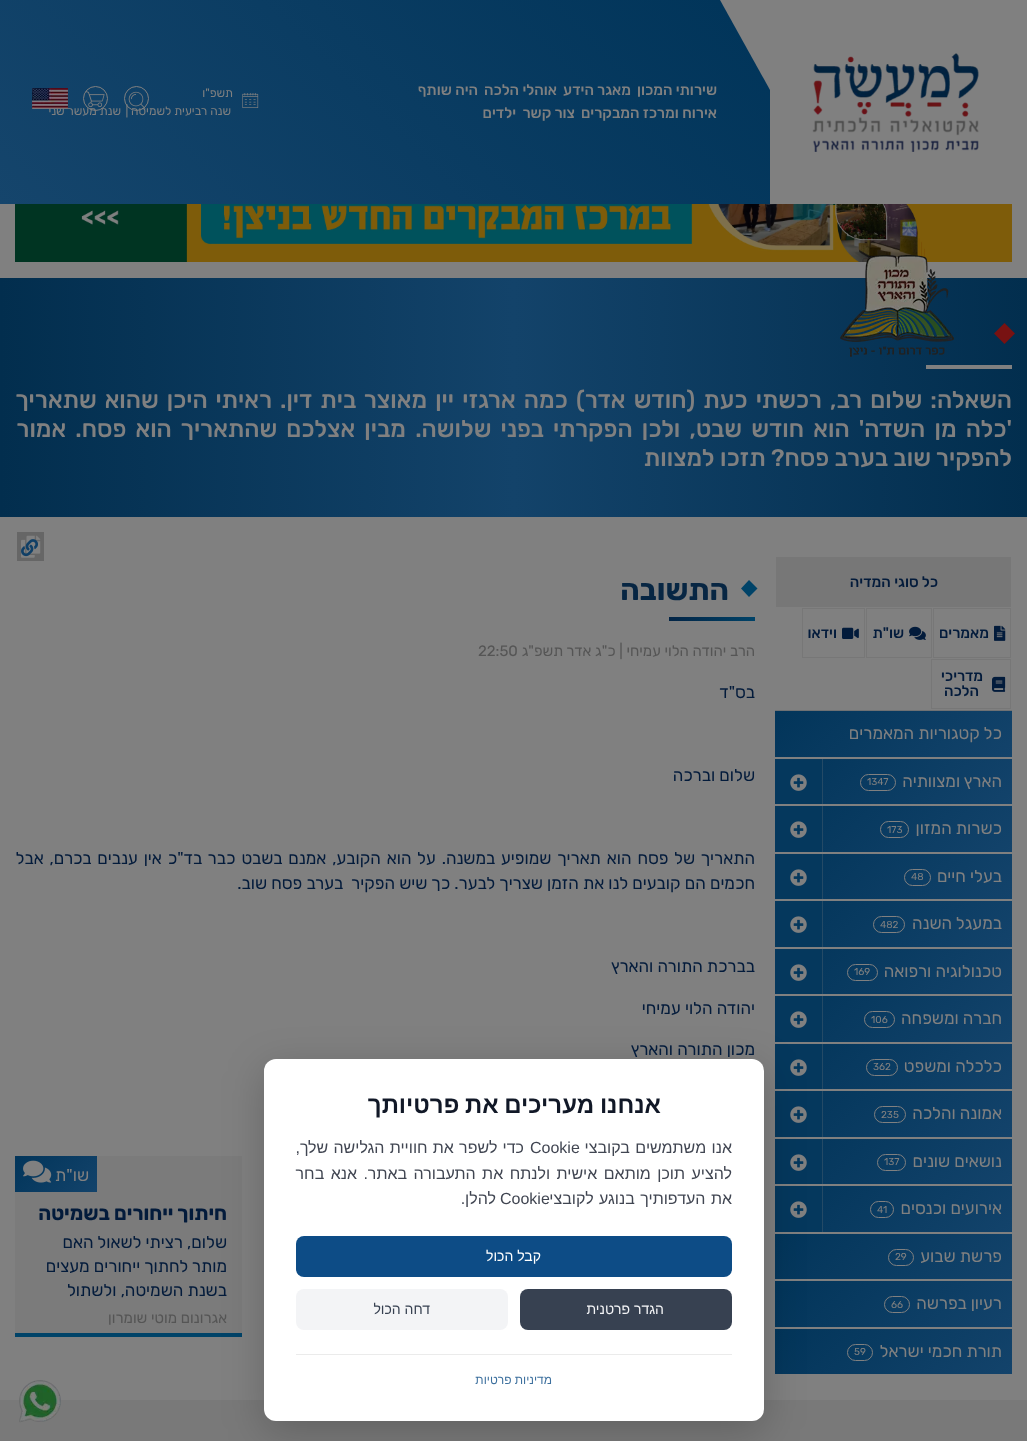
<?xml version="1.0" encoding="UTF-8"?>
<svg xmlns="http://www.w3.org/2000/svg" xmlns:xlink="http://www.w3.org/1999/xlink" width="1027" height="1441">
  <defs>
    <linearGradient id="g1" gradientUnits="userSpaceOnUse" x1="0" y1="398" x2="1027" y2="397"><stop offset="0" stop-color="#022e4e" /><stop offset="0.5" stop-color="#13436a" /><stop offset="1" stop-color="#022e4e" /></linearGradient>
    <linearGradient id="g2" gradientUnits="userSpaceOnUse" x1="629" y1="-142" x2="141" y2="346"><stop offset="0" stop-color="#003459" /><stop offset="1" stop-color="#15456c" /><stop offset="1" stop-color="#103e65" /><stop offset="1" stop-color="#004368" /></linearGradient>
    <linearGradient id="g3" gradientUnits="userSpaceOnUse" x1="823" y1="663" x2="964" y2="805"><stop offset="0" stop-color="#02355a" /><stop offset="1" stop-color="#13436b" /></linearGradient>
    <linearGradient id="g4" gradientUnits="userSpaceOnUse" x1="823" y1="711" x2="964" y2="852"><stop offset="0" stop-color="#02355a" /><stop offset="1" stop-color="#13436b" /></linearGradient>
    <linearGradient id="g5" gradientUnits="userSpaceOnUse" x1="823" y1="758" x2="964" y2="900"><stop offset="0" stop-color="#02355a" /><stop offset="1" stop-color="#13436b" /></linearGradient>
    <linearGradient id="g6" gradientUnits="userSpaceOnUse" x1="823" y1="806" x2="964" y2="947"><stop offset="0" stop-color="#02355a" /><stop offset="1" stop-color="#13436b" /></linearGradient>
    <linearGradient id="g7" gradientUnits="userSpaceOnUse" x1="823" y1="853" x2="964" y2="995"><stop offset="0" stop-color="#02355a" /><stop offset="1" stop-color="#13436b" /></linearGradient>
    <linearGradient id="g8" gradientUnits="userSpaceOnUse" x1="823" y1="901" x2="964" y2="1042"><stop offset="0" stop-color="#02355a" /><stop offset="1" stop-color="#13436b" /></linearGradient>
    <linearGradient id="g9" gradientUnits="userSpaceOnUse" x1="823" y1="948" x2="964" y2="1090"><stop offset="0" stop-color="#02355a" /><stop offset="1" stop-color="#13436b" /></linearGradient>
    <linearGradient id="g10" gradientUnits="userSpaceOnUse" x1="823" y1="996" x2="964" y2="1137"><stop offset="0" stop-color="#02355a" /><stop offset="1" stop-color="#13436b" /></linearGradient>
    <linearGradient id="g11" gradientUnits="userSpaceOnUse" x1="823" y1="1043" x2="964" y2="1185"><stop offset="0" stop-color="#02355a" /><stop offset="1" stop-color="#13436b" /></linearGradient>
    <linearGradient id="g12" gradientUnits="userSpaceOnUse" x1="823" y1="1091" x2="964" y2="1232"><stop offset="0" stop-color="#02355a" /><stop offset="1" stop-color="#13436b" /></linearGradient>
    <linearGradient id="g13" gradientUnits="userSpaceOnUse" x1="823" y1="1138" x2="964" y2="1280"><stop offset="0" stop-color="#02355a" /><stop offset="1" stop-color="#13436b" /></linearGradient>
    <linearGradient id="g14" gradientUnits="userSpaceOnUse" x1="823" y1="1186" x2="964" y2="1327"><stop offset="0" stop-color="#02355a" /><stop offset="1" stop-color="#13436b" /></linearGradient>
    <linearGradient id="g15" gradientUnits="userSpaceOnUse" x1="823" y1="1233" x2="964" y2="1375"><stop offset="0" stop-color="#02355a" /><stop offset="1" stop-color="#13436b" /></linearGradient>
    <linearGradient id="g16" gradientUnits="userSpaceOnUse" x1="823" y1="1281" x2="964" y2="1422"><stop offset="0" stop-color="#02355a" /><stop offset="1" stop-color="#13436b" /></linearGradient>
    <linearGradient id="g17" gradientUnits="userSpaceOnUse" x1="643" y1="619" x2="755" y2="619"><stop offset="0" stop-color="#031b3b" /><stop offset="1" stop-color="#004368" /></linearGradient>
    <linearGradient id="g18" gradientUnits="userSpaceOnUse" x1="26" y1="1145" x2="86" y2="1204"><stop offset="0" stop-color="#02355a" /><stop offset="1" stop-color="#13436b" /></linearGradient>
  </defs>
  <rect width="100%" height="100%" fill="#808080" />
  <image x="812" y="53" width="167" height="99" xlink:href="image1.png" />
  <image x="15" y="204" width="997" height="58" xlink:href="image7.png" />
  <rect y="278" width="1027" height="239" fill="url(#g1)" />
  <image x="840" y="255" width="114" height="102" xlink:href="image2.png" />
  <rect width="770" height="204" fill="url(#g2)" />
  <path d="M 720 0 h 50 v 90 z" fill="#808080" />
  <circle cx="136.5" cy="98.5" r="12" fill="none" stroke="#808080" />
  <circle cx="95.5" cy="98.5" r="12" fill="none" stroke="#808080" />
  <image x="85" y="91" width="20" height="17" xlink:href="image4.png" />
  <image x="242" y="93" width="17" height="15" xlink:href="image6.png" />
  <path d="M 1004.5 323 l 10.5 10.5 l -10.5 10.5 l -10.5 -10.5 z" fill="#781212" />
  <rect x="926" y="365" width="86" height="4" fill="#808080" />
  <rect x="775" y="710" width="237" height="1" fill="#6f7173" />
  <rect x="776" y="557" width="235" height="50" fill="#777777" />
  <rect x="933.5" y="608.5" width="77" height="49" fill="none" stroke="#777777" />
  <image x="994" y="625" width="12" height="16" xlink:href="image8.png" />
  <rect x="866.5" y="608.5" width="65" height="49" fill="none" stroke="#777777" />
  <image x="909" y="626" width="17" height="14" xlink:href="image9.png" />
  <rect x="802.5" y="608.5" width="62" height="49" fill="none" stroke="#777777" />
  <image x="842" y="627" width="17" height="12" xlink:href="image10.png" />
  <rect x="931.5" y="659.5" width="79" height="49" fill="none" stroke="#777777" />
  <image x="992" y="676" width="14" height="16" xlink:href="image11.png" />
  <rect x="775" y="711" width="237" height="46" fill="url(#g3)" />
  <rect x="823" y="759" width="189" height="45" fill="url(#g4)" />
  <rect x="860.5" y="774.5" width="35" height="16" rx="8" fill="none" stroke="#808080" />
  <rect x="775" y="759" width="47" height="45" fill="#05385d" />
  <rect x="822" y="759" width="1" height="45" fill="#244a66" />
  <image x="790" y="774" width="17" height="17" xlink:href="image12.png" />
  <rect x="823" y="806" width="189" height="46" fill="url(#g5)" />
  <rect x="880.5" y="821.5" width="28" height="16" rx="8" fill="none" stroke="#808080" />
  <rect x="775" y="806" width="47" height="46" fill="#05385d" />
  <rect x="822" y="806" width="1" height="46" fill="#244a66" />
  <image x="790" y="821" width="17" height="17" xlink:href="image12.png" />
  <rect x="823" y="854" width="189" height="45" fill="url(#g6)" />
  <rect x="904.5" y="869.5" width="26" height="16" rx="8" fill="none" stroke="#808080" />
  <rect x="775" y="854" width="47" height="45" fill="#05385d" />
  <rect x="822" y="854" width="1" height="45" fill="#244a66" />
  <image x="790" y="869" width="17" height="17" xlink:href="image12.png" />
  <rect x="823" y="901" width="189" height="46" fill="url(#g7)" />
  <rect x="873.5" y="916.5" width="31" height="16" rx="8" fill="none" stroke="#808080" />
  <rect x="775" y="901" width="47" height="46" fill="#05385d" />
  <rect x="822" y="901" width="1" height="46" fill="#244a66" />
  <image x="790" y="916" width="17" height="17" xlink:href="image12.png" />
  <rect x="823" y="949" width="189" height="45" fill="url(#g8)" />
  <rect x="847.5" y="964.5" width="30" height="16" rx="8" fill="none" stroke="#808080" />
  <rect x="775" y="949" width="47" height="45" fill="#05385d" />
  <rect x="822" y="949" width="1" height="45" fill="#244a66" />
  <image x="790" y="964" width="17" height="17" xlink:href="image12.png" />
  <rect x="823" y="996" width="189" height="46" fill="url(#g9)" />
  <rect x="864.5" y="1011.5" width="30" height="16" rx="8" fill="none" stroke="#808080" />
  <rect x="775" y="996" width="47" height="46" fill="#05385d" />
  <rect x="822" y="996" width="1" height="46" fill="#244a66" />
  <image x="790" y="1011" width="17" height="17" xlink:href="image12.png" />
  <rect x="823" y="1044" width="189" height="45" fill="url(#g10)" />
  <rect x="866.5" y="1059.5" width="31" height="16" rx="8" fill="none" stroke="#808080" />
  <rect x="775" y="1044" width="47" height="45" fill="#05385d" />
  <rect x="822" y="1044" width="1" height="45" fill="#244a66" />
  <image x="790" y="1059" width="17" height="17" xlink:href="image12.png" />
  <rect x="823" y="1091" width="189" height="46" fill="url(#g11)" />
  <rect x="874.5" y="1106.5" width="31" height="16" rx="8" fill="none" stroke="#808080" />
  <rect x="775" y="1091" width="47" height="46" fill="#05385d" />
  <rect x="822" y="1091" width="1" height="46" fill="#244a66" />
  <image x="790" y="1106" width="17" height="17" xlink:href="image12.png" />
  <rect x="823" y="1139" width="189" height="45" fill="url(#g12)" />
  <rect x="877.5" y="1154.5" width="28" height="16" rx="8" fill="none" stroke="#808080" />
  <rect x="775" y="1139" width="47" height="45" fill="#05385d" />
  <rect x="822" y="1139" width="1" height="45" fill="#244a66" />
  <image x="790" y="1154" width="17" height="17" xlink:href="image12.png" />
  <rect x="823" y="1186" width="189" height="46" fill="url(#g13)" />
  <rect x="870.5" y="1201.5" width="23" height="16" rx="8" fill="none" stroke="#808080" />
  <rect x="775" y="1186" width="47" height="46" fill="#05385d" />
  <rect x="822" y="1186" width="1" height="46" fill="#244a66" />
  <image x="790" y="1201" width="17" height="17" xlink:href="image12.png" />
  <rect x="775" y="1234" width="237" height="45" fill="url(#g14)" />
  <rect x="888.5" y="1249.5" width="25" height="16" rx="8" fill="none" stroke="#808080" />
  <rect x="775" y="1281" width="237" height="46" fill="url(#g15)" />
  <rect x="884.5" y="1296.5" width="25" height="16" rx="8" fill="none" stroke="#808080" />
  <rect x="775" y="1329" width="237" height="45" fill="url(#g16)" />
  <rect x="847.5" y="1344.5" width="25" height="16" rx="8" fill="none" stroke="#808080" />
  <rect x="17" y="532" width="27" height="29" fill="#666666" />
  <image x="21" y="535" width="20" height="23" xlink:href="image13.png" />
  <image x="21" y="539" width="17" height="18" xlink:href="image14.png" />
  <path d="M 749 580 l 8.5 8.5 l -8.5 8.5 l -8 -8.5 z" fill="#004368" />
  <rect x="669" y="617" width="86" height="4" fill="url(#g17)" />
  <rect x="15" y="1156" width="227" height="177" fill="#7b7b7b" />
  <rect x="15" y="1333" width="227" height="4" fill="#004368" />
  <rect x="15" y="1156" width="82" height="36" fill="url(#g18)" />
  <image x="23" y="1160" width="29" height="23" xlink:href="image15.png" />
  <rect y="1400" width="1027" height="41" fill="#797979" />
  <rect x="264" y="1069" width="500" height="362" rx="12" fill="#000000" fill-opacity="0.2" filter="blur(20px)" />
  <rect x="264" y="1059" width="500" height="362" rx="12" fill="#ffffff" />
  <rect x="296" y="1236" width="436" height="41" rx="8" fill="#0d4c86" />
  <rect x="520" y="1289" width="212" height="41" rx="8" fill="#374151" />
  <rect x="296" y="1289" width="212" height="41" rx="8" fill="#f3f4f6" />
  <rect x="296" y="1354" width="436" height="1" fill="#ebebeb" />
  <image x="19" y="1380" width="42" height="43" xlink:href="image16.png" />
  <text x="717" y="95" style="font-family: Rubik; font-size: 15px; font-weight: 500; direction: rtl; fill: #808080">שירותי המכון</text>
  <text x="631" y="95" style="font-family: Rubik; font-size: 15px; font-weight: 500; direction: rtl; fill: #808080">מאגר הידע</text>
  <text x="557" y="95" style="font-family: Rubik; font-size: 15px; font-weight: 500; direction: rtl; fill: #808080">אוהלי הלכה</text>
  <text x="478" y="95" style="font-family: Rubik; font-size: 15px; font-weight: 500; direction: rtl; fill: #808080">היה שותף</text>
  <text x="717" y="118" style="font-family: Rubik; font-size: 15px; font-weight: 500; direction: rtl; fill: #808080">אירוח ומרכז המבקרים</text>
  <text x="575" y="118" style="font-family: Rubik; font-size: 15px; font-weight: 500; direction: rtl; fill: #808080">צור קשר</text>
  <text x="516" y="118" style="font-family: Rubik; font-size: 15px; font-weight: 500; direction: rtl; fill: #808080">ילדים</text>
  <text x="233" y="97" style="font-family: Rubik; font-size: 12px; direction: rtl; fill: #808080">תשפ"ו</text>
  <text x="231" y="115" style="font-family: Rubik; font-size: 12px; direction: rtl; fill: #808080">שנה רביעית לשמיטה |</text>
  <image x="128" y="91" width="18" height="18" xlink:href="image3.png" />
  <text x="121" y="115" style="font-family: Rubik; font-size: 12px; direction: rtl; fill: #808080">שנת מעשר שני</text>
  <image x="32" y="88" width="36" height="21" xlink:href="image5.png" />
  <text x="1012" y="408" word-spacing="2.75" style="font-family: Rubik; font-size: 24px; font-weight: 500; direction: rtl; fill: #808080">השאלה: שלום רב, רכשתי כעת (חודש אדר) כמה ארגזי יין מאוצר בית דין.</text>
  <text x="272" y="408" word-spacing="2.5" style="font-family: Rubik; font-size: 24px; font-weight: 500; direction: rtl; fill: #808080">ראיתי היכן שהוא שתאריך</text>
  <text x="1012" y="437" word-spacing="3.75" style="font-family: Rubik; font-size: 24px; font-weight: 500; direction: rtl; fill: #808080">'כלה מן השדה' הוא חודש שבט, ולכן הפקרתי בפני שלושה. מבין אצלכם שהתאריך הוא פסח. אמור</text>
  <text x="1012" y="466" style="font-family: Rubik; font-size: 24px; font-weight: 500; direction: rtl; fill: #808080">להפקיר שוב בערב פסח? תזכו למצוות</text>
  <text x="938" y="587" style="font-family: Rubik; font-size: 15px; font-weight: 500; direction: rtl; fill: #031b3b">כל סוגי המדיה</text>
  <text x="989" y="638" style="font-family: Rubik; font-size: 15px; font-weight: 500; direction: rtl; fill: #031b3b">מאמרים</text>
  <text x="904" y="638" style="font-family: Rubik; font-size: 15px; font-weight: 500; direction: rtl; fill: #031b3b">שו"ת</text>
  <text x="837" y="638" style="font-family: Rubik; font-size: 15px; font-weight: 500; direction: rtl; fill: #031b3b">וידאו</text>
  <text x="983" y="681" style="font-family: Rubik; font-size: 15px; font-weight: 500; direction: rtl; fill: #031b3b">מדריכי</text>
  <text x="979" y="696" style="font-family: Rubik; font-size: 15px; font-weight: 500; direction: rtl; fill: #031b3b">הלכה</text>
  <text x="1002" y="739" style="font-family: Rubik; font-size: 17px; direction: rtl; fill: #808080">כל קטגוריות המאמרים</text>
  <text x="1002" y="787" style="font-family: Rubik; font-size: 17px; direction: rtl; fill: #808080">הארץ ומצוותיה</text>
  <text x="867" y="785" style="font-family: Rubik; font-size: 10px; fill: #808080">1347</text>
  <text x="1002" y="834" style="font-family: Rubik; font-size: 17px; direction: rtl; fill: #808080">כשרות המזון</text>
  <text x="887" y="833" style="font-family: Rubik; font-size: 10px; fill: #808080">173</text>
  <text x="1002" y="882" style="font-family: Rubik; font-size: 17px; direction: rtl; fill: #808080">בעלי חיים</text>
  <text x="911" y="880" style="font-family: Rubik; font-size: 10px; fill: #808080">48</text>
  <text x="1002" y="929" style="font-family: Rubik; font-size: 17px; direction: rtl; fill: #808080">במעגל השנה</text>
  <text x="880" y="928" style="font-family: Rubik; font-size: 10px; fill: #808080">482</text>
  <text x="1002" y="977" style="font-family: Rubik; font-size: 17px; direction: rtl; fill: #808080">טכנולוגיה ורפואה</text>
  <text x="854" y="975" style="font-family: Rubik; font-size: 10px; fill: #808080">169</text>
  <text x="1002" y="1024" style="font-family: Rubik; font-size: 17px; direction: rtl; fill: #808080">חברה ומשפחה</text>
  <text x="871" y="1023" style="font-family: Rubik; font-size: 10px; fill: #808080">106</text>
  <text x="1002" y="1072" style="font-family: Rubik; font-size: 17px; direction: rtl; fill: #808080">כלכלה ומשפט</text>
  <text x="873" y="1070" style="font-family: Rubik; font-size: 10px; fill: #808080">362</text>
  <text x="1002" y="1119" style="font-family: Rubik; font-size: 17px; direction: rtl; fill: #808080">אמונה והלכה</text>
  <text x="881" y="1118" style="font-family: Rubik; font-size: 10px; fill: #808080">235</text>
  <text x="1002" y="1167" style="font-family: Rubik; font-size: 17px; direction: rtl; fill: #808080">נושאים שונים</text>
  <text x="884" y="1165" style="font-family: Rubik; font-size: 10px; fill: #808080">137</text>
  <text x="1002" y="1214" style="font-family: Rubik; font-size: 17px; direction: rtl; fill: #808080">אירועים וכנסים</text>
  <text x="877" y="1213" style="font-family: Rubik; font-size: 10px; fill: #808080">41</text>
  <text x="1002" y="1262" style="font-family: Rubik; font-size: 17px; direction: rtl; fill: #808080">פרשת שבוע</text>
  <text x="895" y="1260" style="font-family: Rubik; font-size: 10px; fill: #808080">29</text>
  <text x="1002" y="1309" style="font-family: Rubik; font-size: 17px; direction: rtl; fill: #808080">רעיון בפרשה</text>
  <text x="891" y="1308" style="font-family: Rubik; font-size: 10px; fill: #808080">66</text>
  <text x="1002" y="1357" style="font-family: Rubik; font-size: 17px; direction: rtl; fill: #808080">תורת חכמי ישראל</text>
  <text x="854" y="1355" style="font-family: Rubik; font-size: 10px; fill: #808080">59</text>
  <text x="729" y="600" style="font-family: Rubik; font-size: 30px; font-weight: bold; direction: rtl; fill: #072643">התשובה</text>
  <text x="755" y="656" style="font-family: Rubik; font-size: 15px; direction: rtl; fill: #555555">הרב יהודה הלוי עמיחי | כ"ג אדר תשפ"ג</text>
  <text x="478" y="656" style="font-family: Rubik; font-size: 15px; fill: #555555">22:50</text>
  <text x="755" y="698" style="font-family: Rubik; font-size: 17px; direction: rtl; fill: #031b3b">בס"ד</text>
  <text x="755" y="781" style="font-family: Rubik; font-size: 17px; direction: rtl; fill: #031b3b">שלום וברכה</text>
  <text x="755" y="864" word-spacing="1.75" style="font-family: Rubik; font-size: 17px; direction: rtl; fill: #031b3b">התאריך של פסח הוא תאריך שמופיע במשנה. על הוא הקובע, אמנם בשבט כבר בד"כ אין ענבים בכרם, אבל</text>
  <text x="755" y="889" style="font-family: Rubik; font-size: 17px; direction: rtl; fill: #031b3b" xml:space="preserve">חכמים הם קובעים לנו את הזמן שצריך לבער. כך שיש הפקיר  בערב פסח שוב.</text>
  <text x="755" y="972" style="font-family: Rubik; font-size: 17px; direction: rtl; fill: #031b3b">בברכת התורה והארץ</text>
  <text x="755" y="1014" style="font-family: Rubik; font-size: 17px; direction: rtl; fill: #031b3b">יהודה הלוי עמיחי</text>
  <text x="755" y="1055" style="font-family: Rubik; font-size: 17px; direction: rtl; fill: #031b3b">מכון התורה והארץ</text>
  <text x="89" y="1181" style="font-family: Rubik; font-size: 17px; direction: rtl; fill: #808080">שו"ת</text>
  <text x="227" y="1220" style="font-family: Rubik; font-size: 20px; font-weight: bold; direction: rtl; fill: #031b3b">חיתוך ייחורים בשמיטה</text>
  <text x="227" y="1248" style="font-family: Rubik; font-size: 17px; direction: rtl; fill: #031b3b">שלום, רציתי לשאול האם</text>
  <text x="227" y="1272" style="font-family: Rubik; font-size: 17px; direction: rtl; fill: #031b3b">מותר לחתוך ייחורים מעצים</text>
  <text x="227" y="1296" style="font-family: Rubik; font-size: 17px; direction: rtl; fill: #031b3b">בשנת השמיטה, ולשתול</text>
  <text x="227" y="1323" style="font-family: Rubik; font-size: 15px; direction: rtl; fill: #555555">אגרונום מוטי שומרון</text>
  <text x="661" y="1113" word-spacing="-1" style="font-family: Liberation Sans; font-size: 24px; font-weight: bold; direction: rtl; fill: #111827">אנחנו מעריכים את פרטיותך</text>
  <text x="732" y="1153" word-spacing="1" style="font-family: Liberation Sans; font-size: 16px; direction: rtl; fill: #414652">אנו משתמשים בקובצי</text>
  <text x="530" y="1153" style="font-family: Liberation Sans; font-size: 16px; fill: #414652">Cookie</text>
  <text x="524" y="1153" word-spacing="0.75" style="font-family: Liberation Sans; font-size: 16px; direction: rtl; fill: #414652">כדי לשפר את חוויית הגלישה שלך,</text>
  <text x="732" y="1179" word-spacing="2" style="font-family: Liberation Sans; font-size: 16px; direction: rtl; fill: #414652">להציע תוכן מותאם אישית ולנתח את התעבורה באתר. אנא בחר</text>
  <text x="732" y="1204" word-spacing="1" style="font-family: Liberation Sans; font-size: 16px; direction: rtl; fill: #414652">את העדפותיך בנוגע לקובצי</text>
  <text x="500" y="1204" style="font-family: Liberation Sans; font-size: 16px; fill: #414652">Cookie</text>
  <text x="496" y="1204" style="font-family: Liberation Sans; font-size: 16px; direction: rtl; fill: #414652">להלן.</text>
  <text x="541" y="1261" style="font-family: Liberation Sans; font-size: 14px; direction: rtl; fill: #ffffff">קבל הכול</text>
  <text x="664" y="1314" style="font-family: Liberation Sans; font-size: 14px; direction: rtl; fill: #f3f4f6">הגדר פרטנית</text>
  <text x="430" y="1314" style="font-family: Liberation Sans; font-size: 14px; direction: rtl; fill: #374151">דחה הכול</text>
  <text x="552" y="1384" style="font-family: Liberation Sans; font-size: 12px; direction: rtl; fill: #3d709e">מדיניות פרטיות</text>
</svg>
